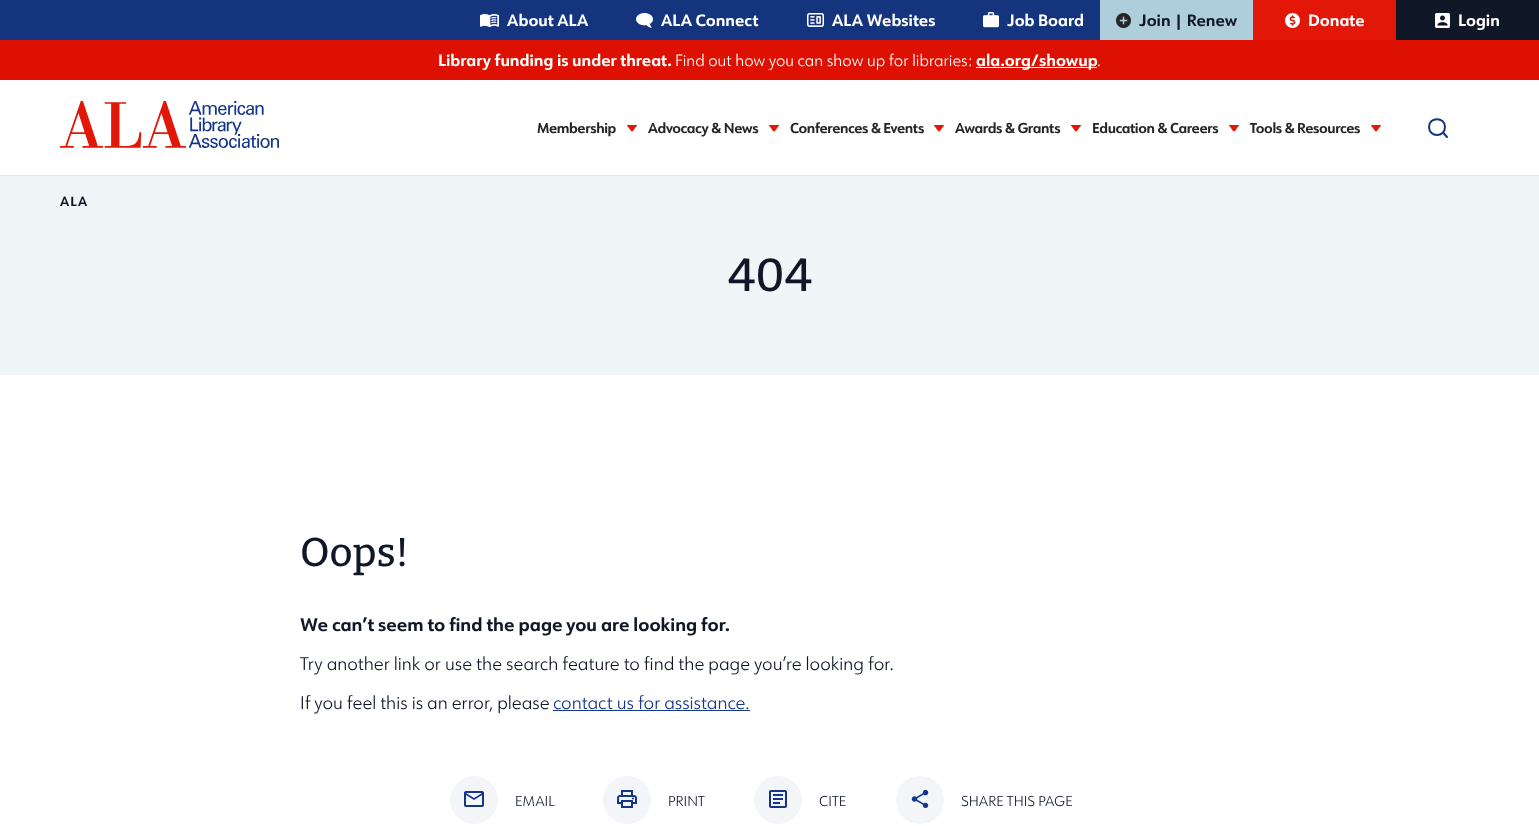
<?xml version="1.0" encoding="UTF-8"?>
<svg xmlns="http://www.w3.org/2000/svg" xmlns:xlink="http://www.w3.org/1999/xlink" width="1539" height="826">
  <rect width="100%" height="100%" fill="#ffffff" />
  <rect y="175" width="1539" height="1" fill="#e5e7eb" />
  <rect width="1100" height="40" fill="#15347e" />
  <image x="480" y="14" width="19" height="13" xlink:href="image1.png" />
  <image x="636" y="13" width="17" height="15" xlink:href="image2.png" />
  <image x="807" y="13" width="17" height="14" xlink:href="image3.png" />
  <image x="983" y="12" width="16" height="16" xlink:href="image4.png" />
  <rect x="1100" width="153" height="40" fill="#adceda" />
  <image x="1116" y="13" width="15" height="15" xlink:href="image5.png" />
  <rect x="1253" width="143" height="40" fill="#e21708" />
  <image x="1285" y="13" width="15" height="15" xlink:href="image6.png" />
  <rect x="1396" width="143" height="40" fill="#101828" />
  <image x="1435" y="13" width="15" height="15" xlink:href="image7.png" />
  <rect y="40" width="1539" height="40" fill="#dd1002" />
  <rect x="976" y="67" width="121" height="1" fill="#ffffff" />
  <image x="60" y="101" width="219" height="47" xlink:href="image8.png" />
  <image x="627" y="125" width="10" height="7" xlink:href="image9.png" />
  <image x="769" y="125" width="10" height="7" xlink:href="image9.png" />
  <image x="934" y="125" width="10" height="7" xlink:href="image9.png" />
  <image x="1071" y="125" width="10" height="7" xlink:href="image9.png" />
  <image x="1229" y="125" width="10" height="7" xlink:href="image9.png" />
  <image x="1371" y="125" width="10" height="7" xlink:href="image9.png" />
  <path d="M 1447 137 l -4 -4.5 m 2 -5.5 c 0 10.5 -16 10.5 -16 0 c 0 -10.5 16 -10.5 16 0 z" fill="none" stroke="#15347e" stroke-width="2" stroke-linecap="round" />
  <rect y="176" width="1539" height="199" fill="#eff6f8" />
  <rect x="553" y="710" width="197" height="1" fill="#143688" />
  <circle cx="474" cy="800" r="24" fill="#f3f5f9" />
  <image x="464" y="791" width="20" height="16" xlink:href="image10.png" />
  <circle cx="627" cy="800" r="24" fill="#f3f5f9" />
  <image x="617" y="790" width="20" height="18" xlink:href="image11.png" />
  <circle cx="778" cy="800" r="24" fill="#f3f5f9" />
  <image x="769" y="790" width="18" height="18" xlink:href="image12.png" />
  <circle cx="920" cy="800" r="24" fill="#f3f5f9" />
  <image x="911" y="789" width="18" height="20" xlink:href="image13.png" />
  <text x="507" y="26" style="font-family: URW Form; font-size: 16px; font-weight: bold; fill: #ffffff">About ALA</text>
  <text x="661" y="26" style="font-family: URW Form; font-size: 16px; font-weight: bold; fill: #ffffff">ALA Connect</text>
  <text x="832" y="26" style="font-family: URW Form; font-size: 16px; font-weight: bold; fill: #ffffff">ALA Websites</text>
  <text x="1007" y="26" style="font-family: URW Form; font-size: 16px; font-weight: bold; fill: #ffffff">Job Board</text>
  <text x="1139" y="26" style="font-family: URW Form; font-size: 16px; font-weight: bold; fill: #101828">Join | Renew</text>
  <text x="1308" y="26" style="font-family: URW Form; font-size: 16px; font-weight: bold; fill: #ffffff">Donate</text>
  <text x="1458" y="26" style="font-family: URW Form; font-size: 16px; font-weight: bold; fill: #ffffff">Login</text>
  <text x="438" y="66" style="font-family: URW Form; font-size: 16px; font-weight: bold; fill: #ffffff">Library funding is under threat.</text>
  <text x="675" y="66" style="font-family: URW Form; font-size: 16px; font-weight: 300; fill: #ffffff">Find out how you can show up for libraries:</text>
  <text x="976" y="66" style="font-family: URW Form; font-size: 16px; font-weight: bold; fill: #ffffff">ala.org/showup</text>
  <text x="1097" y="66" style="font-family: URW Form; font-size: 16px; font-weight: 300; fill: #ffffff">.</text>
  <text x="537" y="133" style="font-family: URW Form; font-size: 14px; font-weight: bold; letter-spacing: -0.4px; fill: #262626">Membership</text>
  <text x="648" y="133" style="font-family: URW Form; font-size: 14px; font-weight: bold; letter-spacing: -0.4px; fill: #262626">Advocacy &amp; News</text>
  <text x="790" y="133" style="font-family: URW Form; font-size: 14px; font-weight: bold; letter-spacing: -0.4px; fill: #262626">Conferences &amp; Events</text>
  <text x="955" y="133" style="font-family: URW Form; font-size: 14px; font-weight: bold; letter-spacing: -0.4px; fill: #262626">Awards &amp; Grants</text>
  <text x="1092" y="133" style="font-family: URW Form; font-size: 14px; font-weight: bold; letter-spacing: -0.4px; fill: #262626">Education &amp; Careers</text>
  <text x="1250" y="133" style="font-family: URW Form; font-size: 14px; font-weight: bold; letter-spacing: -0.4px; fill: #262626">Tools &amp; Resources</text>
  <text x="60" y="206" style="font-family: URW Form; font-size: 13px; font-weight: bold; letter-spacing: 1px; fill: #101828">ALA</text>
  <text x="728" y="291" style="font-family: Bitter; font-size: 46px; font-weight: 500; fill: #101828">404</text>
  <text x="300" y="566" style="font-family: Bitter; font-size: 40px; font-weight: 500; fill: #101828">Oops!</text>
  <text x="300" y="631" style="font-family: URW Form; font-size: 18px; font-weight: bold; fill: #101828">We can’t seem to find the page you are looking for.</text>
  <text x="300" y="670" style="font-family: URW Form; font-size: 18px; font-weight: 300; fill: #101828">Try another link or use the search feature to find the page you’re looking for.</text>
  <text x="300" y="709" style="font-family: URW Form; font-size: 18px; font-weight: 300; fill: #101828">If you feel this is an error, please</text>
  <text x="553" y="709" style="font-family: URW Form; font-size: 18px; font-weight: 300; fill: #143688">contact us for assistance.</text>
  <text x="515" y="806" style="font-family: URW Form; font-size: 14px; font-weight: 300; fill: #101828">EMAIL</text>
  <text x="668" y="806" style="font-family: URW Form; font-size: 14px; font-weight: 300; fill: #101828">PRINT</text>
  <text x="819" y="806" style="font-family: URW Form; font-size: 14px; font-weight: 300; fill: #101828">CITE</text>
  <text x="961" y="806" style="font-family: URW Form; font-size: 14px; font-weight: 300; fill: #101828">SHARE THIS PAGE</text>
</svg>
